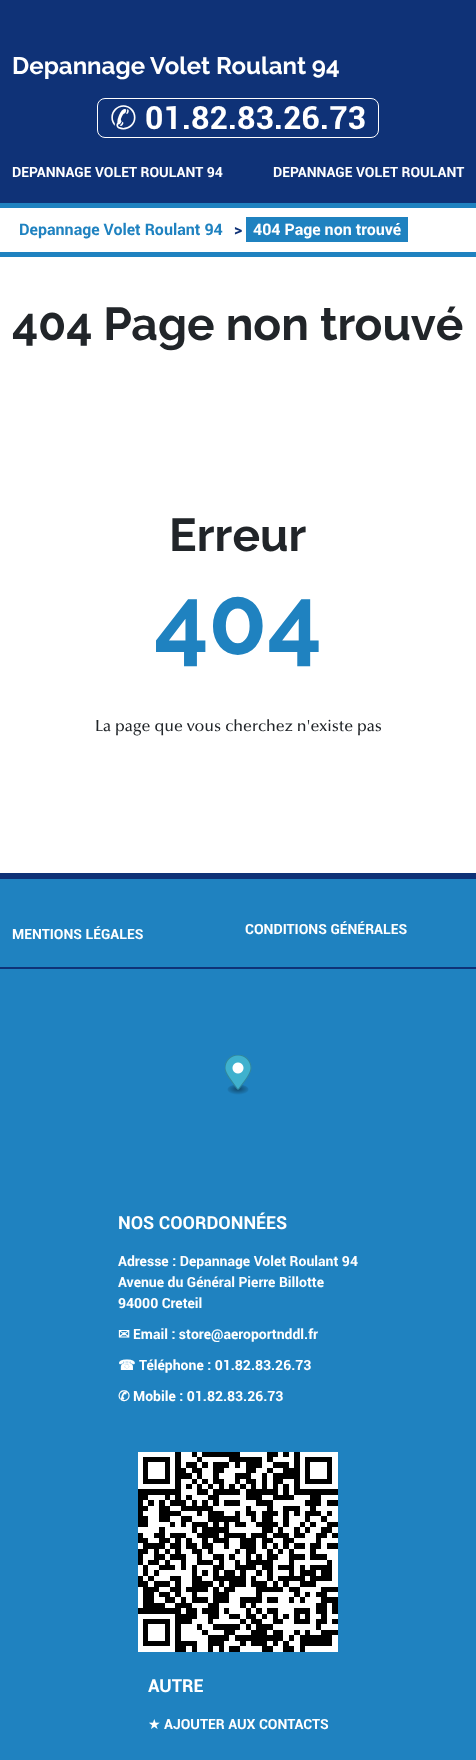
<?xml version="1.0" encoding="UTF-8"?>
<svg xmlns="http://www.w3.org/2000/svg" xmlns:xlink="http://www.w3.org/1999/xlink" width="476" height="1760">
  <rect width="100%" height="100%" fill="#ffffff" />
  <rect width="476" height="203" fill="#0f3277" />
  <rect x="97.5" y="98.5" width="281" height="39" rx="7.5" fill="none" stroke="#ffffff" />
  <rect y="203" width="476" height="5" fill="#1f82c0" />
  <rect y="252" width="476" height="5" fill="#1f82c0" />
  <rect x="246" y="217" width="162" height="25" fill="#1f82c0" />
  <rect y="879" width="476" height="881" fill="#1f82c0" />
  <rect y="873" width="476" height="6" fill="#0f3277" />
  <rect y="967" width="476" height="2" fill="#0f3277" />
  <image x="225" y="1055" width="27" height="40" xlink:href="image1.png" />
  <image x="138" y="1452" width="200" height="200" xlink:href="image2.png" />
  <text x="12" y="74" style="font-family: Raleway; font-size: 24px; font-weight: bold; fill: #ffffff">Depannage Volet Roulant 94</text>
  <text x="110" y="129" style="font-family: DejaVu Sans; font-size: 32px; fill: #ffffff">✆</text>
  <text x="145" y="129" style="font-family: Roboto; font-size: 32px; font-weight: bold; fill: #ffffff">01.82.83.26.73</text>
  <text x="12" y="177" style="font-family: Roboto; font-size: 14px; font-weight: bold; fill: #ffffff">DEPANNAGE VOLET ROULANT 94</text>
  <text x="273" y="177" style="font-family: Roboto; font-size: 14px; font-weight: bold; fill: #ffffff">DEPANNAGE VOLET ROULANT</text>
  <text x="19" y="235" style="font-family: Roboto; font-size: 16px; font-weight: bold; fill: #1f82c0">Depannage Volet Roulant 94</text>
  <text x="234" y="235" style="font-family: Roboto; font-size: 16px; font-weight: bold; fill: #0f3277">&gt;</text>
  <text x="253" y="235" style="font-family: Roboto; font-size: 16px; font-weight: bold; fill: #ffffff">404 Page non trouvé</text>
  <text x="12" y="340" style="font-family: Raleway; font-size: 46px; font-weight: bold; fill: #212529">404 Page non trouvé</text>
  <text x="169" y="551" style="font-family: Raleway; font-size: 46px; font-weight: bold; fill: #212529">Erreur</text>
  <text x="154" y="654" style="font-family: Raleway; font-size: 96px; font-weight: bold; fill: #1f82c0">404</text>
  <text x="95" y="731" style="font-family: Optima; font-size: 16px; font-weight: 500; fill: #212529">La page que vous cherchez n'existe pas</text>
  <text x="12" y="939" style="font-family: Roboto; font-size: 14px; font-weight: bold; fill: #ffffff">MENTIONS LÉGALES</text>
  <text x="245" y="934" style="font-family: Roboto; font-size: 14px; font-weight: bold; fill: #ffffff">CONDITIONS GÉNÉRALES</text>
  <text x="118" y="1229" style="font-family: Roboto; font-size: 18px; font-weight: bold; fill: #ffffff">NOS COORDONNÉES</text>
  <text x="118" y="1266" style="font-family: Roboto; font-size: 14px; font-weight: bold; fill: #ffffff">Adresse : Depannage Volet Roulant 94</text>
  <text x="118" y="1287" style="font-family: Roboto; font-size: 14px; font-weight: bold; fill: #ffffff">Avenue du Général Pierre Billotte</text>
  <text x="118" y="1308" style="font-family: Roboto; font-size: 14px; font-weight: bold; fill: #ffffff">94000 Creteil</text>
  <text x="118" y="1339" style="font-family: DejaVu Sans; font-size: 14px; font-weight: bold; fill: #ffffff">✉</text>
  <text x="133" y="1339" style="font-family: Roboto; font-size: 14px; font-weight: bold; fill: #ffffff">Email : store@aeroportnddl.fr</text>
  <text x="118" y="1370" style="font-family: DejaVu Sans; font-size: 14px; font-weight: bold; fill: #ffffff">☎</text>
  <text x="139" y="1370" style="font-family: Roboto; font-size: 14px; font-weight: bold; fill: #ffffff">Téléphone : 01.82.83.26.73</text>
  <text x="118" y="1401" style="font-family: DejaVu Sans; font-size: 14px; font-weight: bold; fill: #ffffff">✆</text>
  <text x="133" y="1401" style="font-family: Roboto; font-size: 14px; font-weight: bold; fill: #ffffff">Mobile : 01.82.83.26.73</text>
  <text x="148" y="1692" style="font-family: Roboto; font-size: 18px; font-weight: bold; fill: #ffffff">AUTRE</text>
  <text x="148" y="1729" style="font-family: DejaVu Sans; font-size: 14px; fill: #ffffff">★</text>
  <text x="164" y="1729" style="font-family: Roboto; font-size: 14px; font-weight: bold; fill: #ffffff">AJOUTER AUX CONTACTS</text>
</svg>
